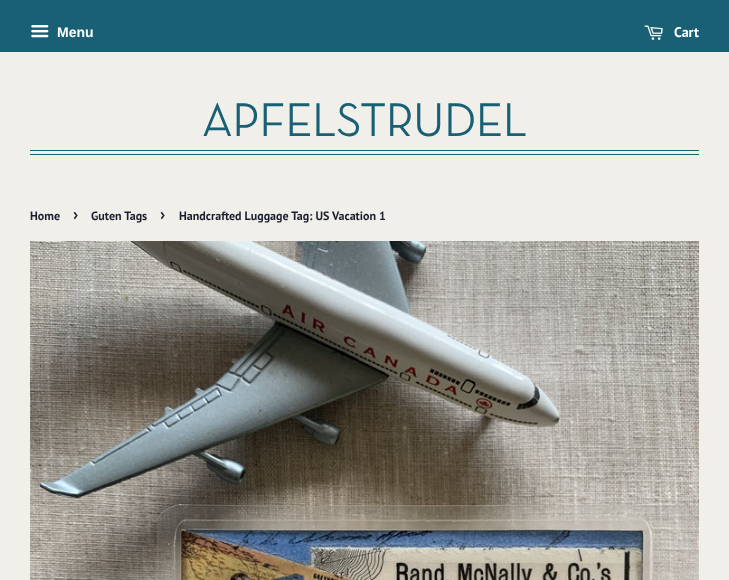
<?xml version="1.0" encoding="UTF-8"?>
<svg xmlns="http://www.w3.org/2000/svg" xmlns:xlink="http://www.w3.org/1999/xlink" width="729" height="580">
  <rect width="100%" height="100%" fill="#f0efe9" />
  <rect width="729" height="52" fill="#196075" />
  <image x="31" y="25" width="18" height="13" xlink:href="image1.png" />
  <image x="644" y="25" width="19" height="15" xlink:href="image2.png" />
  <rect x="30" y="150" width="669" height="1" fill="#196075" />
  <rect x="30" y="154" width="669" height="1" fill="#196075" />
  <image x="30" y="241" width="669" height="339" xlink:href="image3.png" />
  <text x="57" y="37" style="font-family: Liberation Sans; font-size: 14px; font-weight: bold; fill: #ffffff">Menu</text>
  <text x="674" y="37" style="font-family: PT Sans; font-size: 14px; font-weight: bold; fill: #ffffff">Cart</text>
  <text x="202" y="136" style="font-family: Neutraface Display; font-size: 48px; font-weight: 500; fill: #196075">APFELSTRUDEL</text>
  <text x="30" y="220" style="font-family: PT Sans; font-size: 12px; font-weight: bold; fill: #1b1e2f">Home</text>
  <text x="73" y="220" style="font-family: PT Sans; font-size: 17px; font-weight: bold; fill: #1b1e2f">›</text>
  <text x="91" y="220" style="font-family: PT Sans; font-size: 12px; font-weight: bold; fill: #1b1e2f">Guten Tags</text>
  <text x="160" y="220" style="font-family: PT Sans; font-size: 17px; font-weight: bold; fill: #1b1e2f">›</text>
  <text x="179" y="220" style="font-family: PT Sans; font-size: 12px; font-weight: bold; fill: #1b1e2f">Handcrafted Luggage Tag: US Vacation 1</text>
</svg>
